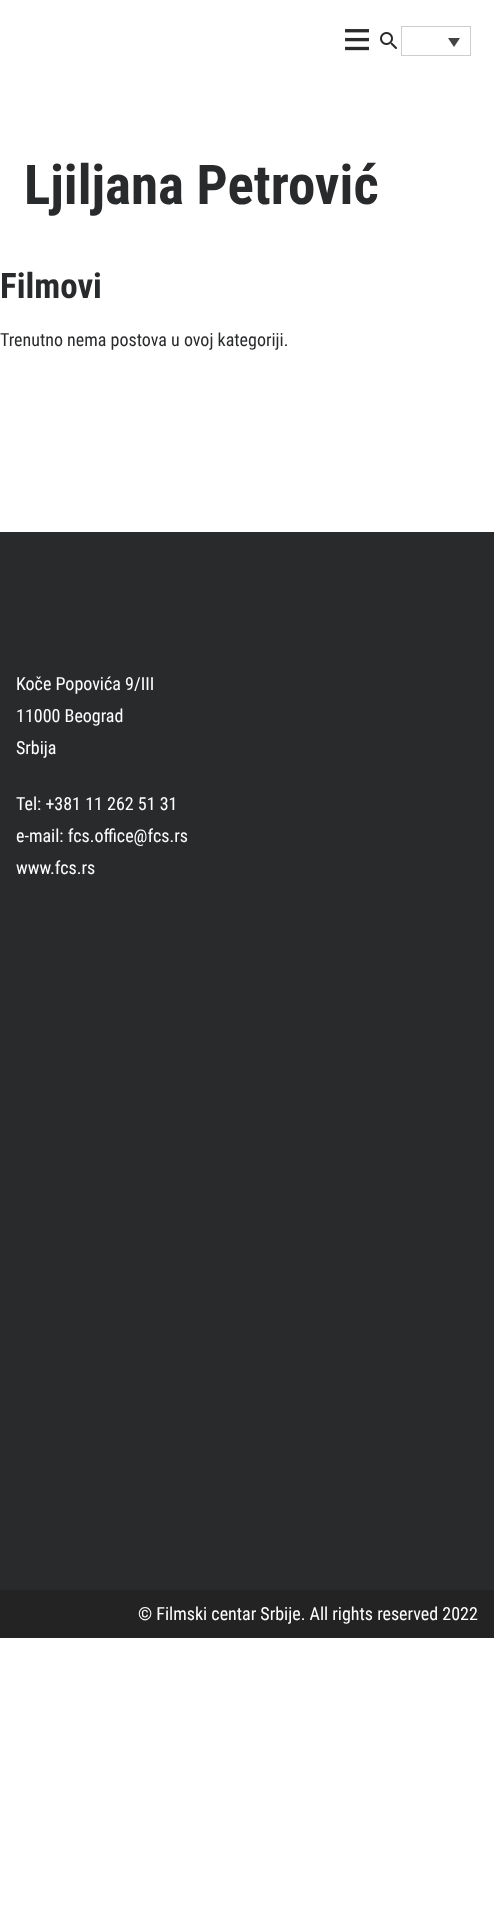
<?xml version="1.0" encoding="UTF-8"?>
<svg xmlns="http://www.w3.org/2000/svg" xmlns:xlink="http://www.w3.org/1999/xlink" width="494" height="1916">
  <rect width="100%" height="100%" fill="#ffffff" />
  <image x="345" y="29" width="24" height="22" xlink:href="image1.png" />
  <image x="380" y="32" width="17" height="17" xlink:href="image2.png" />
  <rect x="401.5" y="26.5" width="69" height="29" fill="none" stroke="#cdcdcd" />
  <path d="M 448 38 h 12 l -6 9 z" fill="#444444" />
  <rect y="532" width="494" height="1058" fill="#292a2c" />
  <rect y="1590" width="494" height="48" fill="#232323" />
  <text x="24" y="204" style="font-family: Roboto Condensed; font-size: 55px; font-weight: bold; fill: #292a2c">Ljiljana Petrović</text>
  <text x="0" y="298" style="font-family: Roboto Condensed; font-size: 35px; font-weight: bold; fill: #292a2c">Filmovi</text>
  <text x="0" y="346" style="font-family: Roboto Condensed; font-size: 18px; fill: #292a2c">Trenutno nema postova u ovoj kategoriji.</text>
  <text x="16" y="690" style="font-family: Roboto Condensed; font-size: 18px; fill: #ffffff">Koče Popovića 9/III</text>
  <text x="16" y="722" style="font-family: Roboto Condensed; font-size: 18px; fill: #ffffff">11000 Beograd</text>
  <text x="16" y="754" style="font-family: Roboto Condensed; font-size: 18px; fill: #ffffff">Srbija</text>
  <text x="16" y="810" style="font-family: Roboto Condensed; font-size: 18px; fill: #ffffff">Tel: +381 11 262 51 31</text>
  <text x="16" y="842" style="font-family: Roboto Condensed; font-size: 18px; fill: #ffffff">e-mail: fcs.office@fcs.rs</text>
  <text x="16" y="874" style="font-family: Roboto Condensed; font-size: 18px; fill: #ffffff">www.fcs.rs</text>
  <text x="138" y="1620" style="font-family: Roboto Condensed; font-size: 18px; fill: #ffffff">© Filmski centar Srbije. All rights reserved 2022</text>
</svg>
